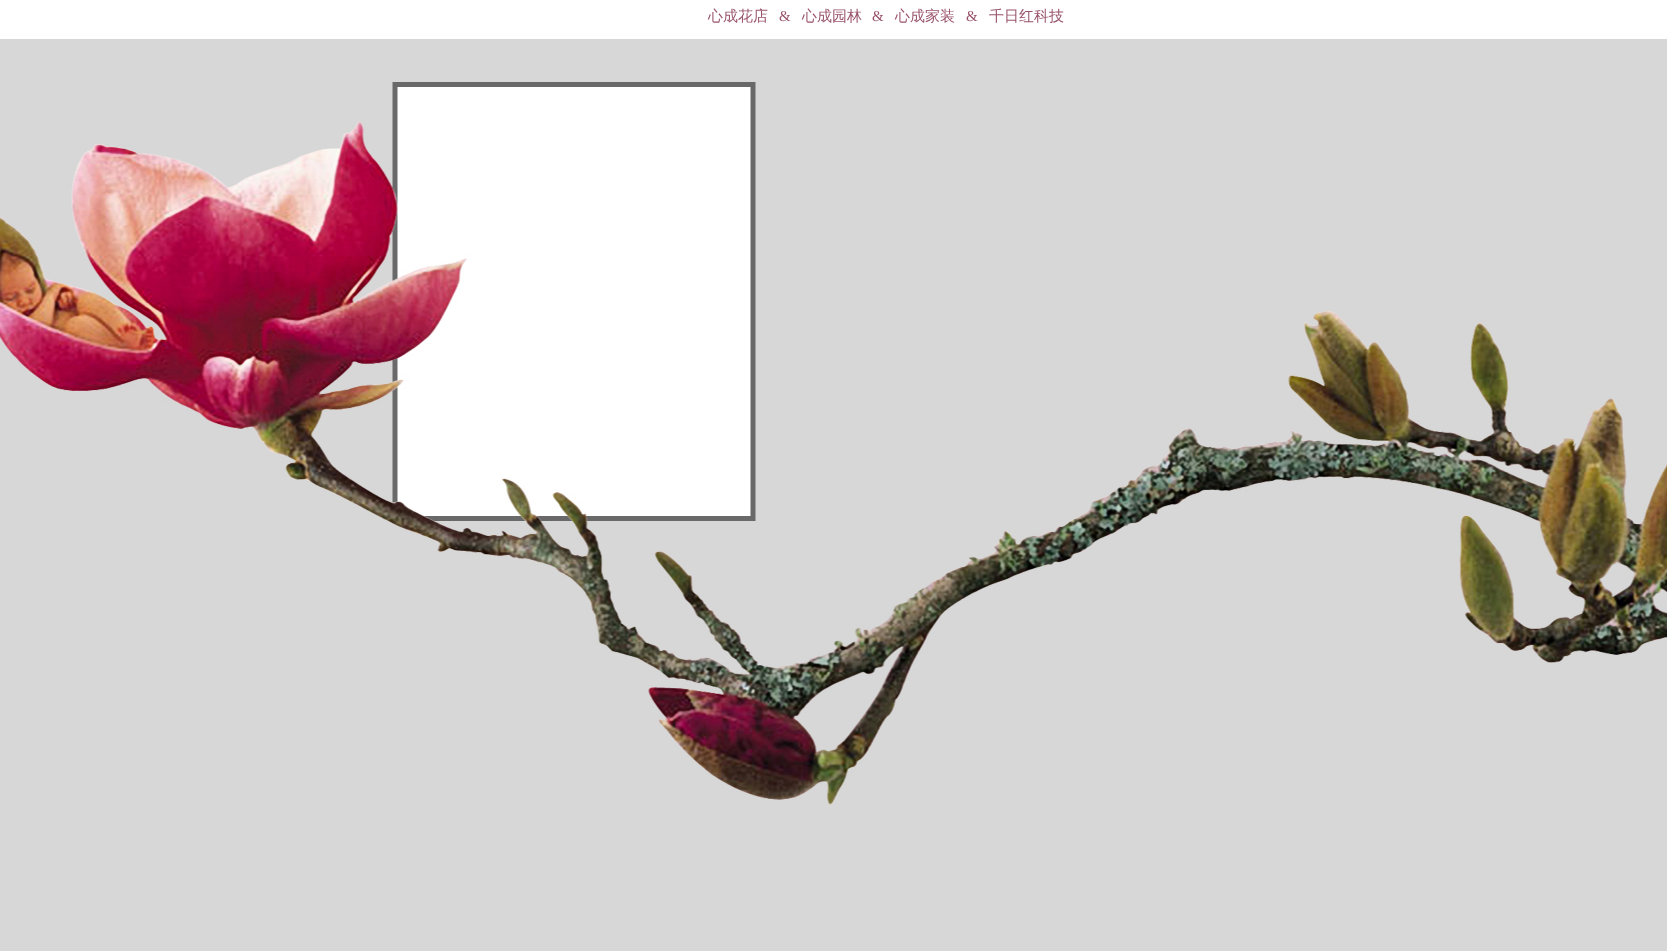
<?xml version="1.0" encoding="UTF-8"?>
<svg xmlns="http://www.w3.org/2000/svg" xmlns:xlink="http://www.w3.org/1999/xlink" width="1667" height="951">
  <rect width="100%" height="100%" fill="#ffffff" />
  <image x="0" y="39" width="1667" height="912" xlink:href="image1.png" />
  <text x="708" y="21" style="font-family: WenQuanYi Zen Hei; font-size: 15px; font-weight: 500; fill: #9a546d">心成花店</text>
  <text x="779" y="21" style="font-family: Liberation Serif; font-size: 15px; fill: #9a546d">&amp;</text>
  <text x="802" y="21" style="font-family: WenQuanYi Zen Hei; font-size: 15px; font-weight: 500; fill: #9a546d">心成园林</text>
  <text x="872" y="21" style="font-family: Liberation Serif; font-size: 15px; fill: #9a546d">&amp;</text>
  <text x="895" y="21" style="font-family: WenQuanYi Zen Hei; font-size: 15px; font-weight: 500; fill: #9a546d">心成家装</text>
  <text x="966" y="21" style="font-family: Liberation Serif; font-size: 15px; fill: #9a546d">&amp;</text>
  <text x="989" y="21" style="font-family: WenQuanYi Zen Hei; font-size: 15px; font-weight: 500; fill: #9a546d">千日红科技</text>
</svg>
